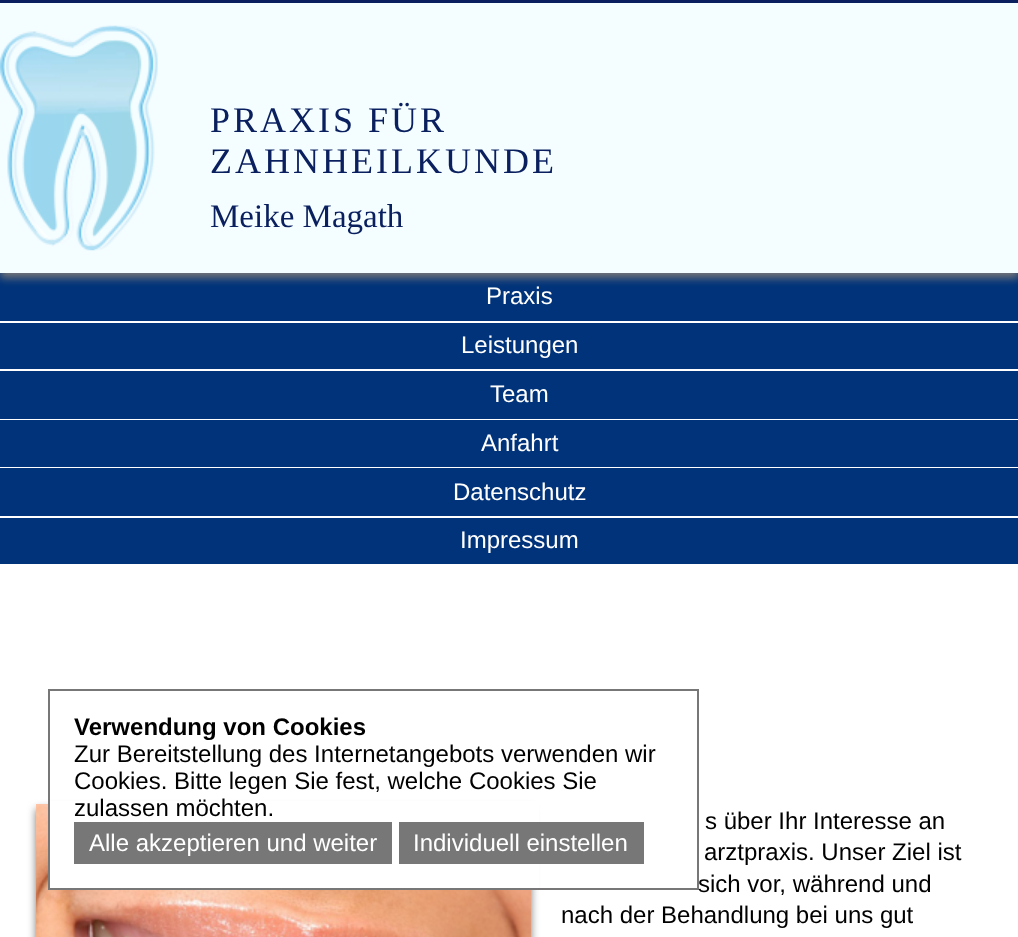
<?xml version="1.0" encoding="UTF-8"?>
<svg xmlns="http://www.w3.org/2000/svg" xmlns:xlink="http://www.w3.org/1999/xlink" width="1018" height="937">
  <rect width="100%" height="100%" fill="#ffffff" />
  <rect y="273" width="1018" height="48" fill="#01337a" />
  <rect y="5" width="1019" height="273" fill="#777777" filter="blur(4px)" />
  <rect y="3" width="1018" height="270" fill="#f4fdff" />
  <rect width="1018" height="3" fill="#091f5e" />
  <image x="0" y="25" width="158" height="226" xlink:href="image1.png" />
  <rect y="323" width="1018" height="46" fill="#01337a" />
  <rect y="371" width="1018" height="48" fill="#01337a" />
  <rect y="420" width="1018" height="47" fill="#01337a" />
  <rect y="468" width="1018" height="48" fill="#01337a" />
  <rect y="518" width="1018" height="46" fill="#01337a" />
  <rect x="36" y="809" width="495" height="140" fill="#777777" filter="blur(4px)" />
  <image x="36" y="804" width="495" height="133" xlink:href="image2.png" />
  <rect x="50" y="801" width="489" height="87" fill="#ffffff" />
  <rect x="49" y="690" width="649" height="199" fill="none" stroke="#777777" stroke-width="2" />
  <rect x="74" y="822" width="318" height="42" fill="#777777" />
  <rect x="399" y="822" width="245" height="42" fill="#777777" />
  <text x="210" y="132" style="font-family: Liberation Serif; font-size: 36px; letter-spacing: 3px; fill: #091f5e">PRAXIS FÜR</text>
  <text x="210" y="173" style="font-family: Liberation Serif; font-size: 36px; letter-spacing: 3px; fill: #091f5e">ZAHNHEILKUNDE</text>
  <text x="210" y="227" style="font-family: Liberation Serif; font-size: 33px; fill: #091f5e">Meike Magath</text>
  <text x="486" y="304" style="font-family: Liberation Sans; font-size: 24px; fill: #ffffff">Praxis</text>
  <text x="461" y="353" style="font-family: Liberation Sans; font-size: 24px; fill: #ffffff">Leistungen</text>
  <text x="490" y="402" style="font-family: Liberation Sans; font-size: 24px; fill: #ffffff">Team</text>
  <text x="481" y="451" style="font-family: Liberation Sans; font-size: 24px; fill: #ffffff">Anfahrt</text>
  <text x="453" y="500" style="font-family: Liberation Sans; font-size: 24px; fill: #ffffff">Datenschutz</text>
  <text x="460" y="548" style="font-family: Liberation Sans; font-size: 24px; fill: #ffffff">Impressum</text>
  <text x="74" y="735" style="font-family: Liberation Sans; font-size: 24px; font-weight: bold; fill: #000000">Verwendung von Cookies</text>
  <text x="74" y="762" style="font-family: Liberation Sans; font-size: 24px; fill: #000000">Zur Bereitstellung des Internetangebots verwenden wir</text>
  <text x="74" y="789" style="font-family: Liberation Sans; font-size: 24px; fill: #000000">Cookies. Bitte legen Sie fest, welche Cookies Sie</text>
  <text x="74" y="816" style="font-family: Liberation Sans; font-size: 24px; fill: #000000">zulassen möchten.</text>
  <text x="89" y="851" style="font-family: Liberation Sans; font-size: 24px; fill: #ffffff">Alle akzeptieren und weiter</text>
  <text x="413" y="851" style="font-family: Liberation Sans; font-size: 24px; fill: #ffffff">Individuell einstellen</text>
  <text x="705" y="829" style="font-family: Liberation Sans; font-size: 24px; fill: #000000">s über Ihr Interesse an</text>
  <text x="704" y="860" style="font-family: Liberation Sans; font-size: 24px; fill: #000000">arztpraxis. Unser Ziel ist</text>
  <text x="698" y="892" style="font-family: Liberation Sans; font-size: 24px; fill: #000000">sich vor, während und</text>
  <text x="561" y="923" style="font-family: Liberation Sans; font-size: 24px; fill: #000000">nach der Behandlung bei uns gut</text>
</svg>
